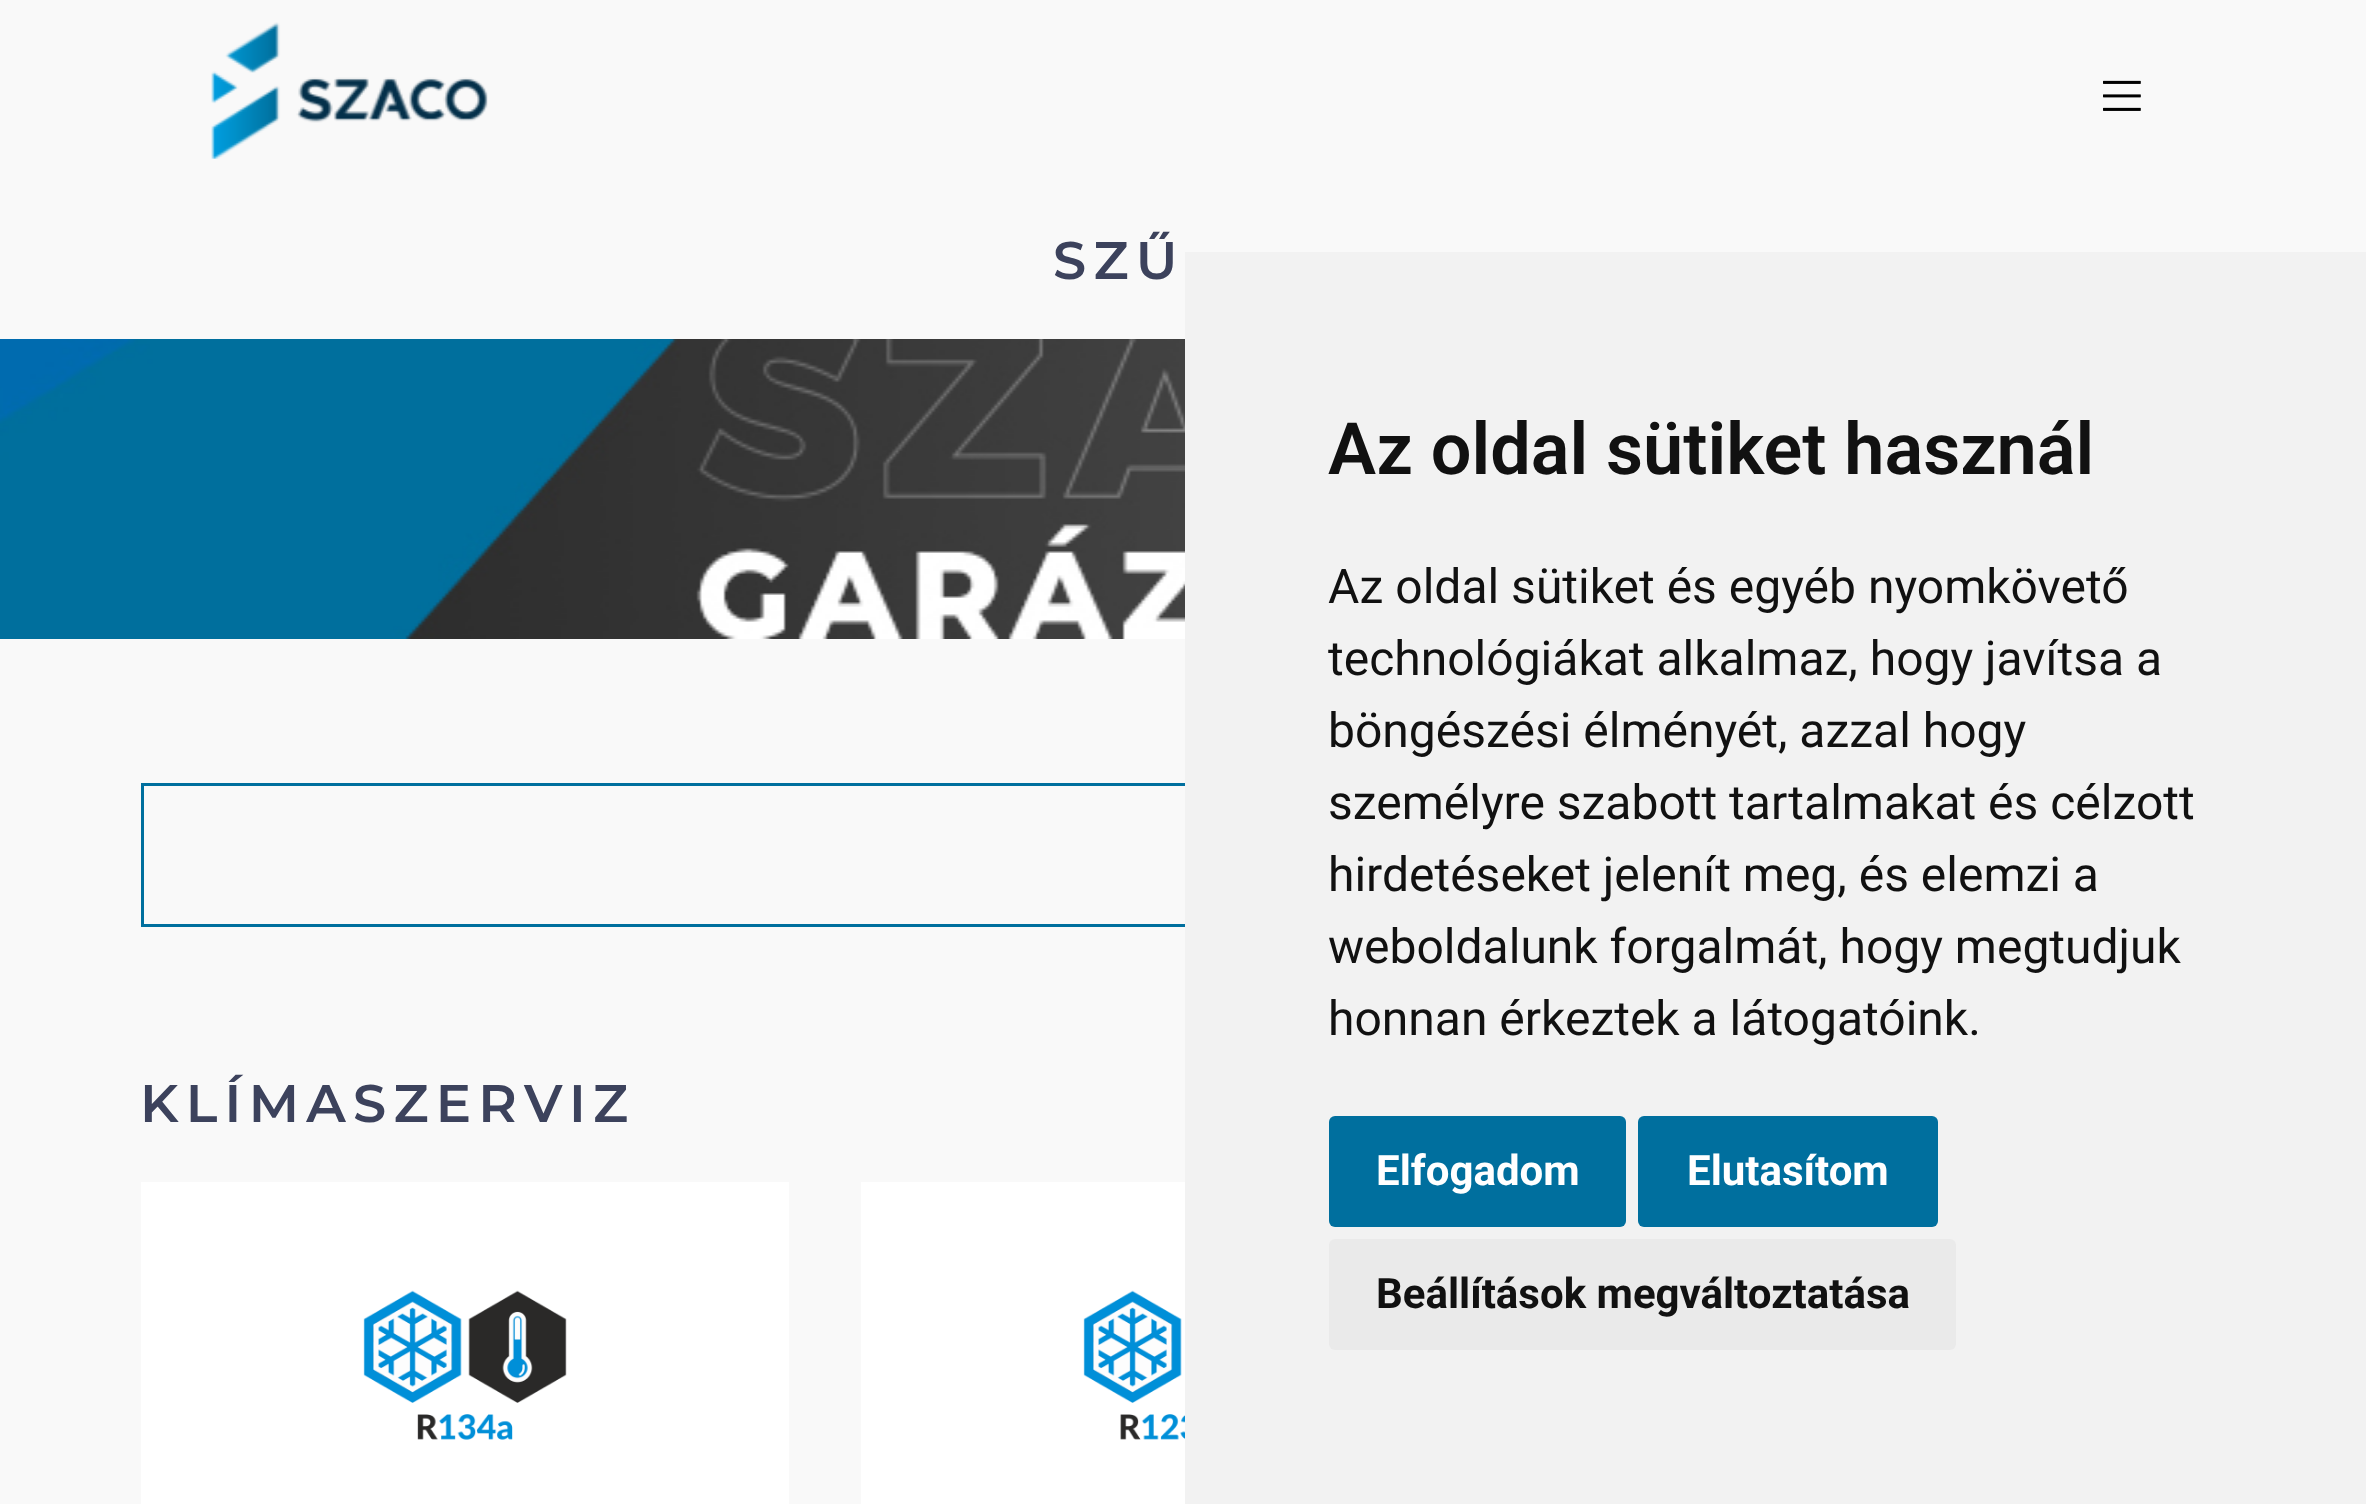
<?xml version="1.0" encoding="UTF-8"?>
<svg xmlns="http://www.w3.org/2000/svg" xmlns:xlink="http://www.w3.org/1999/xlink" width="2366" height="1504">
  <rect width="100%" height="100%" fill="#f9f9f9" />
  <image x="211" y="22" width="277" height="137" xlink:href="image1.png" />
  <image x="2103" y="80" width="38" height="31" xlink:href="image2.png" />
  <rect x="141" y="1182" width="648" height="322" fill="#ffffff" />
  <image x="363" y="1290" width="204" height="150" xlink:href="image3.png" />
  <rect x="861" y="1182" width="324" height="322" fill="#ffffff" />
  <image x="1083" y="1290" width="102" height="150" xlink:href="image4.png" />
  <image x="0" y="339" width="1185" height="300" xlink:href="image5.png" />
  <rect x="142.5" y="784.5" width="2085" height="141" fill="none" stroke="#006f9e" stroke-width="3" />
  <rect x="1185" y="252" width="1181" height="1252" fill="#f2f2f2" />
  <rect x="1329" y="1116" width="297" height="111" rx="6" fill="#006f9e" />
  <rect x="1638" y="1116" width="300" height="111" rx="6" fill="#006f9e" />
  <rect x="1329" y="1239" width="627" height="111" rx="6" fill="#eaeaea" />
  <text x="1053" y="279" style="font-family: Montserrat; font-size: 52.75px; font-weight: 600; letter-spacing: 7.25px; fill: #3c425c">SZŰ</text>
  <text x="140" y="1122" style="font-family: Montserrat; font-size: 52.75px; font-weight: 600; letter-spacing: 7.25px; fill: #3c425c">KLÍMASZERVIZ</text>
  <text x="1328" y="474" style="font-family: Roboto; font-size: 72px; font-weight: 600; fill: #111111">Az oldal sütiket használ</text>
  <text x="1328" y="603" style="font-family: Roboto; font-size: 48px; fill: #111111">Az oldal sütiket és egyéb nyomkövető</text>
  <text x="1328" y="675" style="font-family: Roboto; font-size: 48px; fill: #111111">technológiákat alkalmaz, hogy javítsa a</text>
  <text x="1328" y="747" style="font-family: Roboto; font-size: 48px; fill: #111111">böngészési élményét, azzal hogy</text>
  <text x="1328" y="819" style="font-family: Roboto; font-size: 48px; fill: #111111">személyre szabott tartalmakat és célzott</text>
  <text x="1328" y="891" style="font-family: Roboto; font-size: 48px; fill: #111111">hirdetéseket jelenít meg, és elemzi a</text>
  <text x="1328" y="963" style="font-family: Roboto; font-size: 48px; fill: #111111">weboldalunk forgalmát, hogy megtudjuk</text>
  <text x="1328" y="1035" style="font-family: Roboto; font-size: 48px; fill: #111111">honnan érkeztek a látogatóink.</text>
  <text x="1376" y="1185" style="font-family: Roboto; font-size: 42px; font-weight: bold; fill: #ffffff">Elfogadom</text>
  <text x="1687" y="1185" style="font-family: Roboto; font-size: 42px; font-weight: bold; fill: #ffffff">Elutasítom</text>
  <text x="1376" y="1308" style="font-family: Roboto; font-size: 42px; font-weight: bold; fill: #111111">Beállítások megváltoztatása</text>
</svg>
